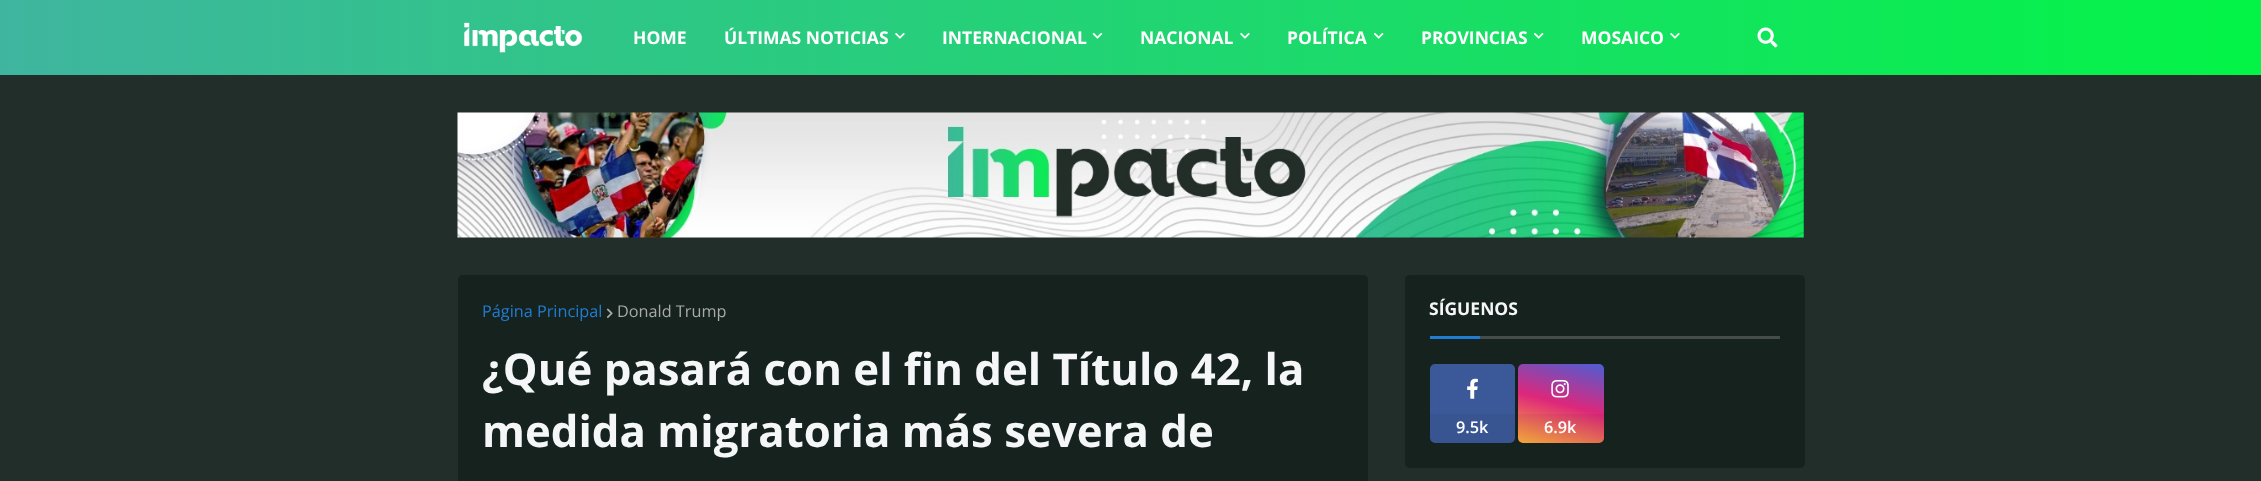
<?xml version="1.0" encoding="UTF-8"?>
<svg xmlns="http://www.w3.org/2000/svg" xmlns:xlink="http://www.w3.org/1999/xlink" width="2261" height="481">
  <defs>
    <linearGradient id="g1" gradientUnits="userSpaceOnUse" x1="0" y1="38" x2="2261" y2="37"><stop offset="0" stop-color="#3fb59f" /><stop offset="1" stop-color="#03f447" /></linearGradient>
    <linearGradient id="g2" gradientUnits="userSpaceOnUse" x1="1548" y1="451" x2="1573" y2="356"><stop offset="0" stop-color="#ffb13d" /><stop offset="0.5" stop-color="#dd277b" /><stop offset="1" stop-color="#4d5ed4" /></linearGradient>
  </defs>
  <rect width="100%" height="100%" fill="#222e29" />
  <rect width="2261" height="75" fill="url(#g1)" />
  <image x="464" y="22" width="119" height="31" xlink:href="image1.png" />
  <image x="895" y="32" width="10" height="7" xlink:href="image2.png" />
  <image x="1092" y="32" width="11" height="7" xlink:href="image3.png" />
  <image x="1240" y="32" width="10" height="7" xlink:href="image4.png" />
  <image x="1373" y="32" width="11" height="7" xlink:href="image5.png" />
  <image x="1533" y="32" width="11" height="7" xlink:href="image6.png" />
  <image x="1670" y="32" width="10" height="7" xlink:href="image7.png" />
  <image x="1757" y="27" width="21" height="21" xlink:href="image8.png" />
  <image x="457" y="112" width="1347" height="126" xlink:href="image9.png" />
  <rect x="458" y="275" width="910" height="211" rx="5" fill="#16221d" />
  <image x="606" y="308" width="7" height="10" xlink:href="image10.png" />
  <rect x="1405" y="275" width="400" height="193" rx="5" fill="#16221d" />
  <rect x="1480" y="336" width="300" height="3" fill="#454c49" />
  <rect x="1430" y="336" width="50" height="3" fill="#217dd4" />
  <rect x="1430" y="364" width="85" height="79" rx="5" fill="#3b5999" />
  <image x="1467" y="378" width="11" height="21" xlink:href="image11.png" />
  <rect x="1430" y="414" width="85" height="29" fill="#000000" fill-opacity="0.05" />
  <rect x="1518" y="364" width="86" height="79" rx="5" fill="url(#g2)" />
  <image x="1551" y="380" width="18" height="18" xlink:href="image12.png" />
  <rect x="1518" y="414" width="86" height="29" fill="#000000" fill-opacity="0.05" />
  <text x="633" y="44" style="font-family: Open Sans; font-size: 17.5px; font-weight: bold; fill: #ffffff">HOME</text>
  <text x="724" y="44" style="font-family: Open Sans; font-size: 17.5px; font-weight: bold; fill: #ffffff">ÚLTIMAS NOTICIAS</text>
  <text x="942" y="44" style="font-family: Open Sans; font-size: 17.5px; font-weight: bold; fill: #ffffff">INTERNACIONAL</text>
  <text x="1140" y="44" style="font-family: Open Sans; font-size: 17.5px; font-weight: bold; fill: #ffffff">NACIONAL</text>
  <text x="1287" y="44" style="font-family: Open Sans; font-size: 17.5px; font-weight: bold; fill: #ffffff">POLÍTICA</text>
  <text x="1421" y="44" style="font-family: Open Sans; font-size: 17.5px; font-weight: bold; fill: #ffffff">PROVINCIAS</text>
  <text x="1581" y="44" style="font-family: Open Sans; font-size: 17.5px; font-weight: bold; fill: #ffffff">MOSAICO</text>
  <text x="482" y="317" style="font-family: Open Sans; font-size: 16.25px; fill: #217dd4">Página Principal</text>
  <text x="617" y="317" style="font-family: Open Sans; font-size: 16.25px; fill: #aaaaaa">Donald Trump</text>
  <text x="482" y="385" style="font-family: Open Sans; font-size: 43.75px; font-weight: bold; fill: #f5f6f8">¿Qué pasará con el fin del Título 42, la</text>
  <text x="482" y="447" style="font-family: Open Sans; font-size: 43.75px; font-weight: bold; fill: #f5f6f8">medida migratoria más severa de</text>
  <text x="1429" y="315" style="font-family: Open Sans; font-size: 17.5px; font-weight: bold; fill: #f5f6f8">SÍGUENOS</text>
  <text x="1456" y="433" style="font-family: Open Sans; font-size: 16.25px; font-weight: 600; fill: #ffffff">9.5k</text>
  <text x="1544" y="433" style="font-family: Open Sans; font-size: 16.25px; font-weight: 600; fill: #ffffff">6.9k</text>
</svg>
